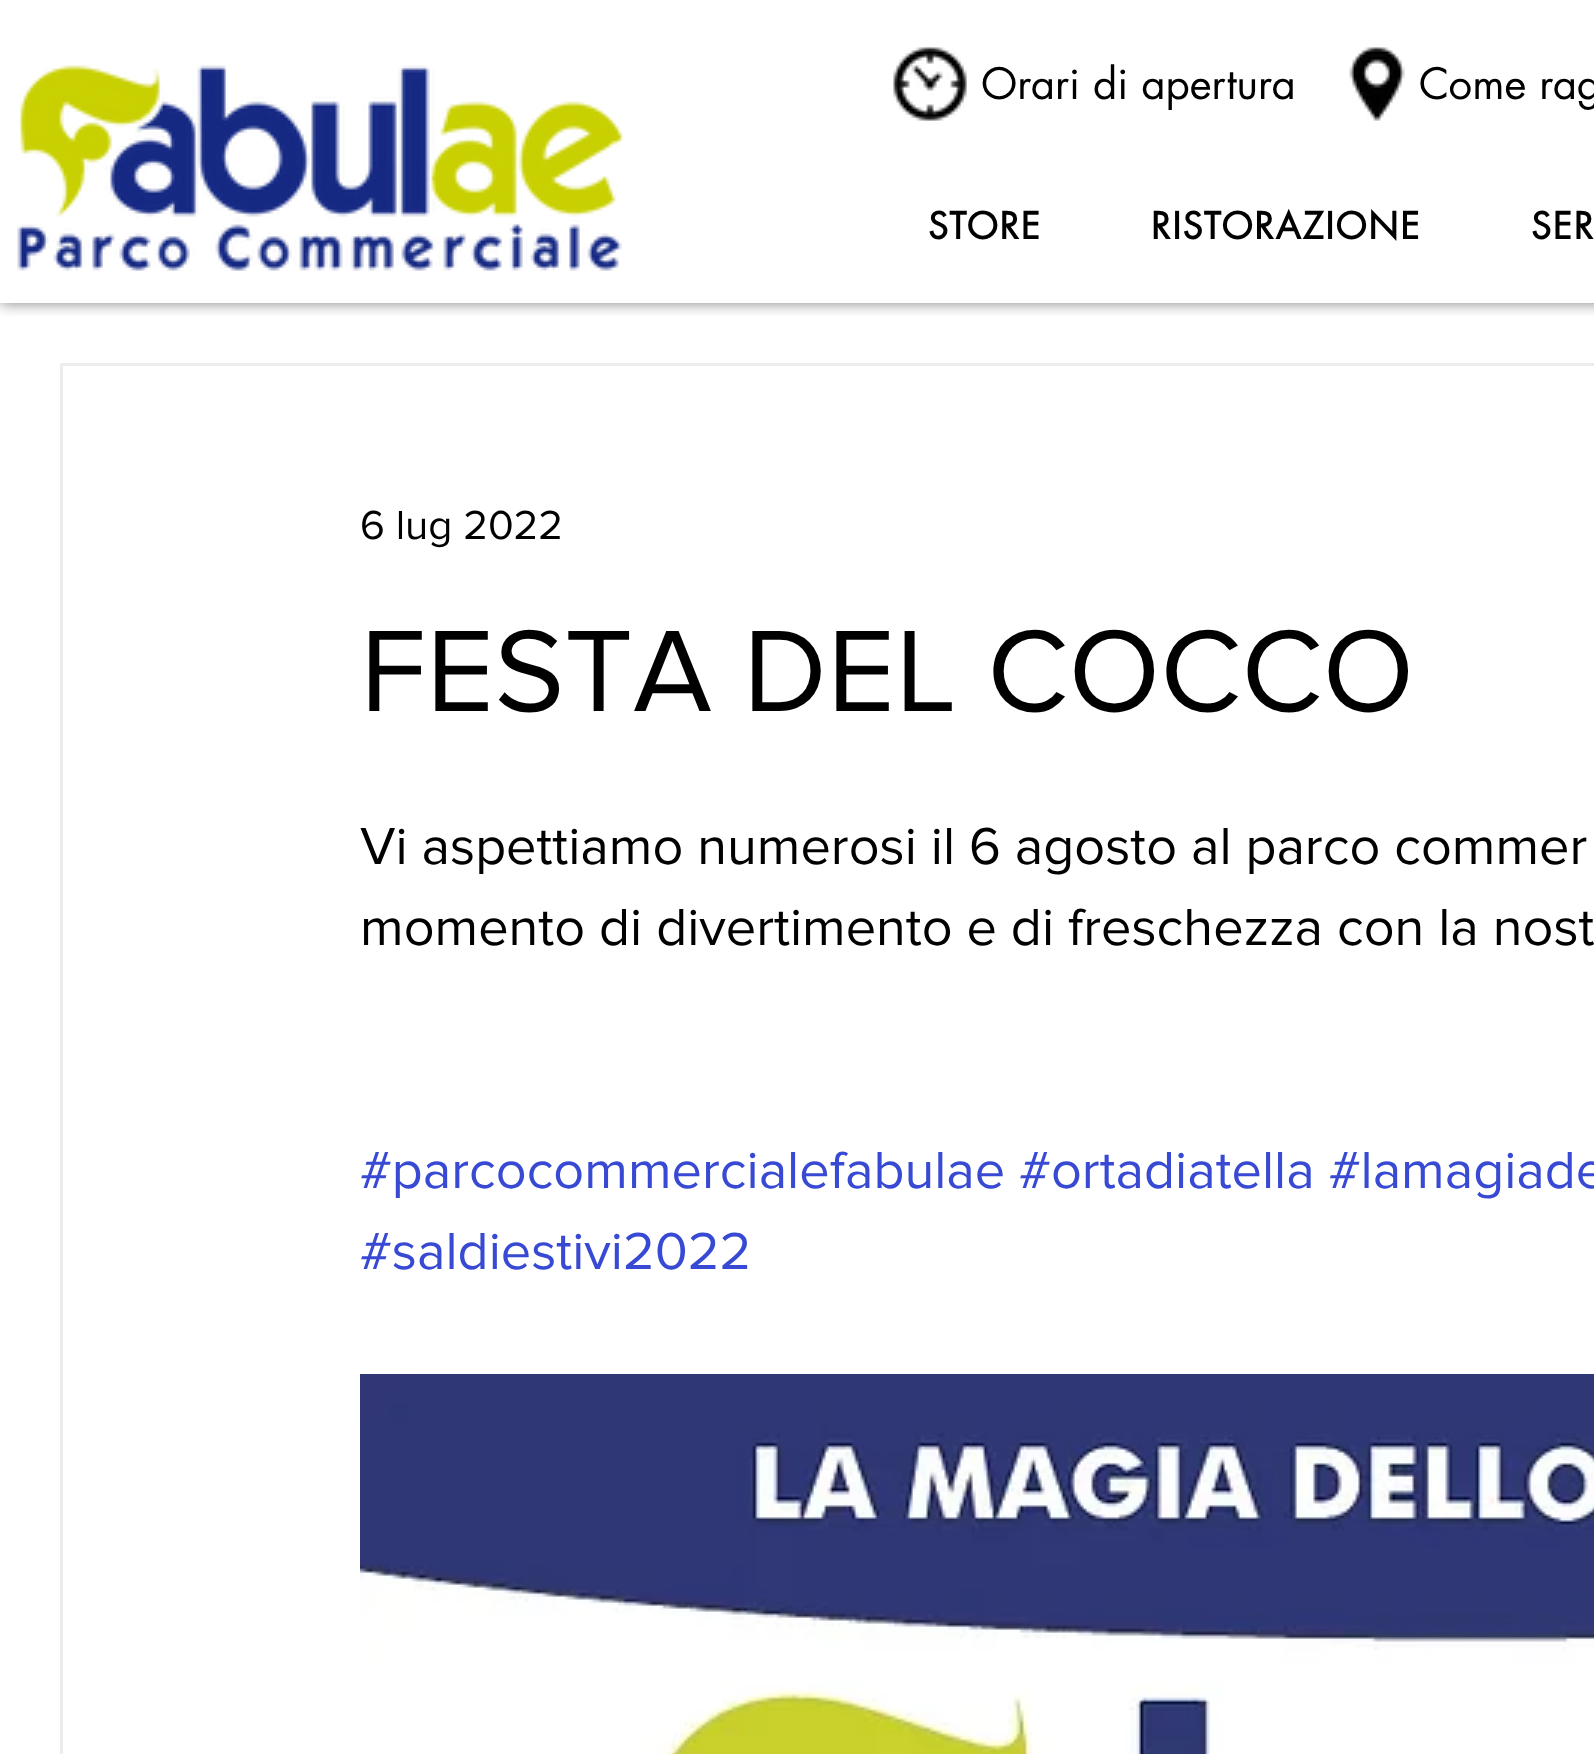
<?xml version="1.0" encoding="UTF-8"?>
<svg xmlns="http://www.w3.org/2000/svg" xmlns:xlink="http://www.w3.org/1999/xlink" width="1594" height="1754">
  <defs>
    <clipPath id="clip1"><rect x="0" y="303" width="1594" height="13" /></clipPath>
  </defs>
  <rect width="100%" height="100%" fill="#ffffff" />
  <g clip-path="url(#clip1)">
    <rect width="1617" height="303" fill="#000000" fill-opacity="0.5" filter="blur(7.5px)" />
  </g>
  <image x="17" y="65" width="608" height="206" xlink:href="image1.png" />
  <image x="893" y="47" width="74" height="74" xlink:href="image2.png" />
  <image x="1349" y="47" width="56" height="74" xlink:href="image3.png" />
  <rect x="61.5" y="364.5" width="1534" height="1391" fill="none" stroke="#eeecec" stroke-width="3" />
  <image x="360" y="1374" width="1234" height="380" xlink:href="image4.png" />
  <text x="981" y="99" style="font-family: futura; font-size: 42px; fill: #000000">Orari di apertura</text>
  <text x="1419" y="99" style="font-family: futura; font-size: 42px; fill: #000000">Come rag</text>
  <text x="928" y="239" style="font-family: futura; font-size: 36px; font-weight: bold; letter-spacing: 1.75px; fill: #000000">STORE</text>
  <text x="1151" y="239" style="font-family: futura; font-size: 36px; font-weight: bold; letter-spacing: 1.75px; fill: #000000">RISTORAZIONE</text>
  <text x="1531" y="239" style="font-family: futura; font-size: 36px; font-weight: bold; letter-spacing: 1.75px; fill: #000000">SER</text>
  <text x="360" y="539" style="font-family: 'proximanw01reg'; font-size: 42px; fill: #000000">6 lug 2022</text>
  <text x="360" y="711" style="font-family: 'proximanw01reg'; font-size: 120px; fill: #000000">FESTA DEL COCCO</text>
  <text x="360" y="864" style="font-family: 'proximanw01reg'; font-size: 54px; fill: #000000">Vi aspettiamo numerosi il 6 agosto al parco commer</text>
  <text x="360" y="945" style="font-family: 'proximanw01reg'; font-size: 54px; fill: #000000">momento di divertimento e di freschezza con la nost</text>
  <text x="360" y="1188" style="font-family: 'proximanw01reg'; font-size: 54px; fill: #384ad3">#parcocommercialefabulae #ortadiatella #lamagiade</text>
  <text x="360" y="1269" style="font-family: 'proximanw01reg'; font-size: 54px; fill: #384ad3">#saldiestivi2022</text>
</svg>
